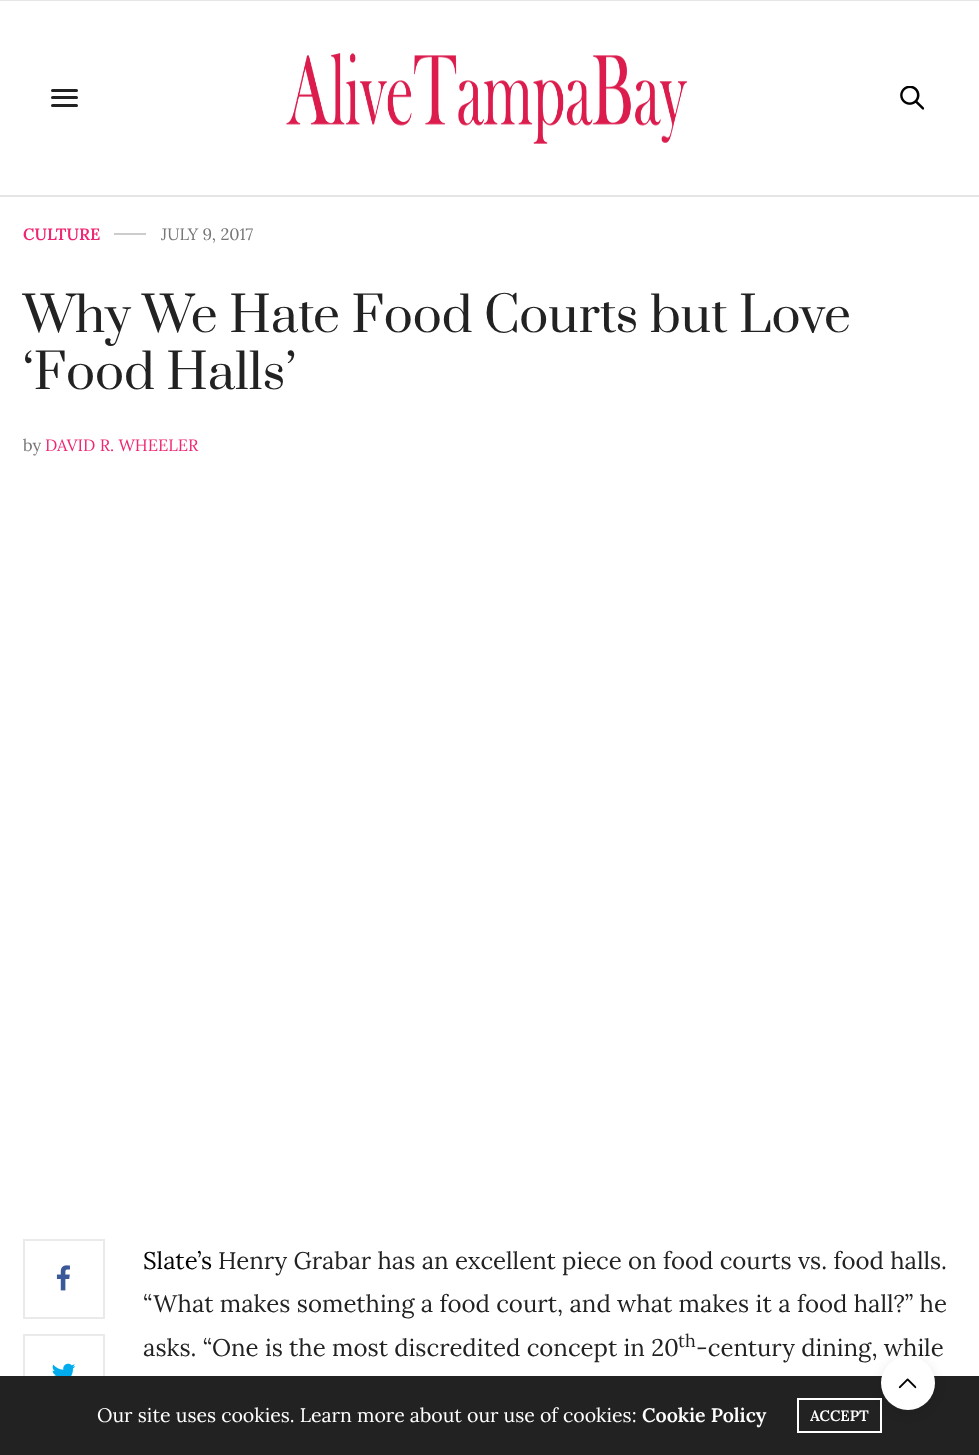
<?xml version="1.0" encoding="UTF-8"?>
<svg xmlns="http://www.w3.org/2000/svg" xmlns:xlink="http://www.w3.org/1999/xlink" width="979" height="1455">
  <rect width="100%" height="100%" fill="#ffffff" />
  <rect width="979" height="1" fill="#e6e6e6" />
  <rect y="195" width="979" height="2" fill="#e6e6e6" />
  <rect x="51" y="89" width="27" height="3" rx="1.5" fill="#222222" />
  <rect x="51" y="96" width="27" height="3" rx="1.5" fill="#222222" />
  <rect x="51" y="104" width="27" height="3" rx="1.5" fill="#222222" />
  <image x="286" y="53" width="401" height="91" xlink:href="image1.png" />
  <image x="900" y="86" width="24" height="24" xlink:href="image2.png" />
  <rect x="114" y="233" width="32" height="2" fill="#cccccc" />
  <rect x="24" y="1240" width="80" height="78" fill="none" stroke="#eaeaea" stroke-width="2" />
  <image x="56" y="1265" width="14" height="26" xlink:href="image3.png" />
  <rect x="24" y="1335" width="80" height="77" fill="none" stroke="#eaeaea" stroke-width="2" />
  <image x="52" y="1363" width="24" height="13" xlink:href="image4.png" />
  <rect y="1376" width="979" height="79" fill="#222222" />
  <rect x="798" y="1399" width="83" height="33" fill="none" stroke="#ffffff" stroke-width="2" />
  <rect x="881" y="1359" width="54" height="54" rx="27" fill="#000000" fill-opacity="0.1" filter="blur(6px)" />
  <text x="23" y="240" style="font-family: Lora; font-size: 16.5px; font-weight: 600; fill: #ef2673">CULTURE</text>
  <text x="161" y="240" style="font-family: Lora; font-size: 16.5px; fill: #767676">JULY 9, 2017</text>
  <text x="23" y="332" style="font-family: Prata; font-size: 48px; fill: #222222">Why We Hate Food Courts but Love</text>
  <text x="23" y="389" style="font-family: Prata; font-size: 48px; fill: #222222">‘Food Halls’</text>
  <text x="23" y="451" style="font-family: Lora; font-size: 16.5px; fill: #767676">by</text>
  <text x="45" y="451" style="font-family: Lora; font-size: 16.5px; fill: #ef2673">DAVID R. WHEELER</text>
  <text x="143" y="1269" style="font-family: Lora; font-size: 24px; fill: #000000">Slate’s</text>
  <text x="218" y="1269" style="font-family: Lora; font-size: 24px; fill: #222222">Henry Grabar has an excellent piece on food courts vs. food halls.</text>
  <text x="143" y="1312" style="font-family: Lora; font-size: 24px; fill: #222222">“What makes something a food court, and what makes it a food hall?” he</text>
  <text x="143" y="1356" style="font-family: Lora; font-size: 24px; fill: #222222">asks. “One is the most discredited concept in 20</text>
  <text x="678" y="1347" style="font-family: Lora; font-size: 18px; fill: #222222">th</text>
  <text x="696" y="1356" style="font-family: Lora; font-size: 24px; fill: #222222">-century dining, while</text>
  <text x="97" y="1422" style="font-family: Lora; font-size: 19.5px; fill: #ffffff">Our site uses cookies. Learn more about our use of cookies:</text>
  <text x="642" y="1422" style="font-family: Lora; font-size: 19.5px; font-weight: 600; fill: #ffffff">Cookie Policy</text>
  <text x="810" y="1421" style="font-family: Lora; font-size: 15px; font-weight: 600; fill: #ffffff">ACCEPT</text>
  <circle cx="908" cy="1383" r="27" fill="#ffffff" />
  <image x="898" y="1378" width="19" height="11" xlink:href="image5.png" />
</svg>
